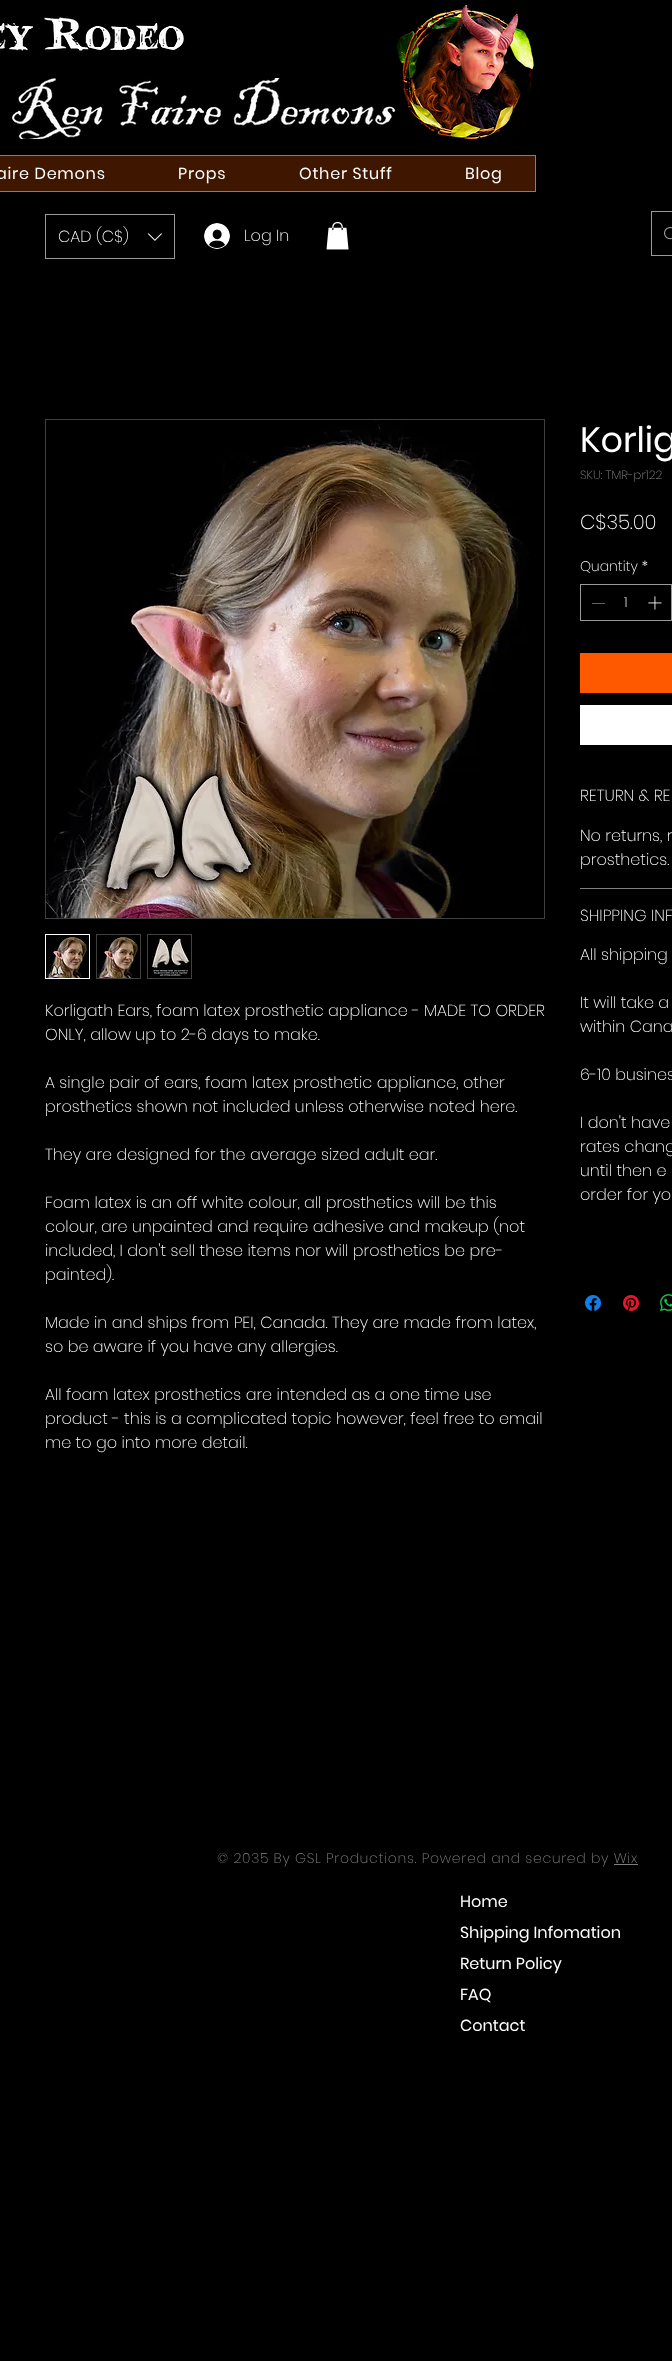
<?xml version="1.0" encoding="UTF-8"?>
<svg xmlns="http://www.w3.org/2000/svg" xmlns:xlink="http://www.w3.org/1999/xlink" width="672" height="2361">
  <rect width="100%" height="100%" fill="#000000" />
  <image x="0" y="16" width="186" height="37" xlink:href="image1.png" />
  <image x="396" y="5" width="138" height="134" xlink:href="image2.png" />
  <image x="12" y="78" width="383" height="61" xlink:href="image3.png" />
  <rect x="-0.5" y="155.5" width="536" height="36" fill="#3f1600" stroke="#ff5900" />
  <rect x="45.5" y="214.5" width="129" height="44" fill="none" stroke="#999999" />
  <image x="147" y="233" width="15" height="8" xlink:href="image4.png" />
  <image x="204" y="223" width="26" height="26" xlink:href="image5.png" />
  <image x="326" y="222" width="23" height="28" xlink:href="image6.png" />
  <rect x="651.5" y="211.5" width="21" height="44" fill="none" stroke="#999999" />
  <image x="664" y="227" width="8" height="13" xlink:href="image7.png" />
  <rect x="45.5" y="419.5" width="499" height="499" fill="none" stroke="#404040" />
  <image x="46" y="420" width="484" height="498" xlink:href="image8.png" />
  <rect x="45.5" y="934.5" width="44" height="44" fill="none" stroke="#ffffff" />
  <image x="46" y="935" width="43" height="43" xlink:href="image9.png" />
  <rect x="96" y="934" width="45" height="45" fill="#404040" />
  <image x="97" y="935" width="43" height="43" xlink:href="image10.png" />
  <rect x="147" y="934" width="45" height="45" fill="#404040" />
  <image x="148" y="935" width="43" height="43" xlink:href="image11.png" />
  <rect x="580.5" y="584.5" width="91" height="36" fill="none" stroke="#999999" />
  <rect x="592" y="603" width="13" height="1" fill="#646464" />
  <image x="648" y="596" width="14" height="14" xlink:href="image12.png" />
  <rect x="580" y="653" width="92" height="40" fill="#ff5900" />
  <rect x="580" y="705" width="92" height="40" fill="#ffffff" />
  <rect x="580" y="888" width="92" height="1" fill="#808080" />
  <image x="585" y="1295" width="16" height="16" xlink:href="image13.png" />
  <image x="623" y="1295" width="16" height="16" xlink:href="image14.png" />
  <image x="660" y="1294" width="12" height="17" xlink:href="image15.png" />
  <rect x="614" y="1864" width="24" height="1" fill="#808080" />
  <text x="-4" y="179" style="font-family: Poppins; font-size: 16px; letter-spacing: 0.75px; fill: #ffffff">aire Demons</text>
  <text x="178" y="179" style="font-family: Poppins; font-size: 16px; letter-spacing: 0.75px; fill: #ffffff">Props</text>
  <text x="299" y="179" style="font-family: Poppins; font-size: 16px; letter-spacing: 0.75px; fill: #ffffff">Other Stuff</text>
  <text x="465" y="179" style="font-family: Poppins; font-size: 16px; letter-spacing: 0.75px; fill: #ffffff">Blog</text>
  <text x="58" y="242" style="font-family: Poppins; font-size: 16px; font-weight: 200; fill: #ffffff">CAD (C$)</text>
  <text x="244" y="241" style="font-family: Poppins; font-size: 16px; font-weight: 200; fill: #ffffff">Log In</text>
  <text x="45" y="1016" style="font-family: Poppins; font-size: 16px; font-weight: 200; fill: #ffffff">Korligath Ears, foam latex prosthetic appliance - MADE TO ORDER</text>
  <text x="45" y="1040" style="font-family: Poppins; font-size: 16px; font-weight: 200; fill: #ffffff">ONLY, allow up to 2-6 days to make.</text>
  <text x="45" y="1088" style="font-family: Poppins; font-size: 16px; font-weight: 200; fill: #ffffff">A single pair of ears, foam latex prosthetic appliance, other</text>
  <text x="45" y="1112" style="font-family: Poppins; font-size: 16px; font-weight: 200; fill: #ffffff">prosthetics shown not included unless otherwise noted here.</text>
  <text x="45" y="1160" style="font-family: Poppins; font-size: 16px; font-weight: 200; fill: #ffffff">They are designed for the average sized adult ear.</text>
  <text x="45" y="1208" style="font-family: Poppins; font-size: 16px; font-weight: 200; fill: #ffffff">Foam latex is an off white colour, all prosthetics will be this</text>
  <text x="45" y="1232" style="font-family: Poppins; font-size: 16px; font-weight: 200; fill: #ffffff">colour, are unpainted and require adhesive and makeup (not</text>
  <text x="45" y="1256" style="font-family: Poppins; font-size: 16px; font-weight: 200; fill: #ffffff">included, I don't sell these items nor will prosthetics be pre-</text>
  <text x="45" y="1280" style="font-family: Poppins; font-size: 16px; font-weight: 200; fill: #ffffff">painted).</text>
  <text x="45" y="1328" style="font-family: Poppins; font-size: 16px; font-weight: 200; fill: #ffffff">Made in and ships from PEI, Canada. They are made from latex,</text>
  <text x="45" y="1352" style="font-family: Poppins; font-size: 16px; font-weight: 200; fill: #ffffff">so be aware if you have any allergies.</text>
  <text x="45" y="1400" style="font-family: Poppins; font-size: 16px; font-weight: 200; fill: #ffffff">All foam latex prosthetics are intended as a one time use</text>
  <text x="45" y="1424" style="font-family: Poppins; font-size: 16px; font-weight: 200; fill: #ffffff">product - this is a complicated topic however, feel free to email</text>
  <text x="45" y="1448" style="font-family: Poppins; font-size: 16px; font-weight: 200; fill: #ffffff">me to go into more detail.</text>
  <text x="580" y="452" style="font-family: Poppins; font-size: 35px; fill: #ffffff">Korlig</text>
  <text x="580" y="479" style="font-family: Poppins; font-size: 12px; font-weight: 200; fill: #808080">SKU: TMR-pr122</text>
  <text x="580" y="529" style="font-family: Poppins; font-size: 20px; font-weight: 200; fill: #ffffff">C$35.00</text>
  <text x="580" y="571" style="font-family: Poppins; font-size: 14px; font-weight: 200; fill: #ffffff">Quantity *</text>
  <text x="624" y="607" style="font-family: Poppins; font-size: 14px; font-weight: 200; fill: #ffffff">1</text>
  <text x="580" y="801" style="font-family: Poppins; font-size: 16px; font-weight: 200; fill: #ffffff">RETURN &amp; RE</text>
  <text x="580" y="841" style="font-family: Poppins; font-size: 16px; font-weight: 200; fill: #ffffff">No returns, r</text>
  <text x="580" y="865" style="font-family: Poppins; font-size: 16px; font-weight: 200; fill: #ffffff">prosthetics.</text>
  <text x="580" y="921" style="font-family: Poppins; font-size: 16px; font-weight: 200; fill: #ffffff">SHIPPING INF</text>
  <text x="580" y="960" style="font-family: Poppins; font-size: 16px; font-weight: 200; fill: #ffffff">All shipping</text>
  <text x="580" y="1008" style="font-family: Poppins; font-size: 16px; font-weight: 200; fill: #ffffff">It will take a</text>
  <text x="580" y="1032" style="font-family: Poppins; font-size: 16px; font-weight: 200; fill: #ffffff">within Cana</text>
  <text x="580" y="1080" style="font-family: Poppins; font-size: 16px; font-weight: 200; fill: #ffffff">6-10 busines</text>
  <text x="580" y="1128" style="font-family: Poppins; font-size: 16px; font-weight: 200; fill: #ffffff">I don't have</text>
  <text x="580" y="1152" style="font-family: Poppins; font-size: 16px; font-weight: 200; fill: #ffffff">rates chang</text>
  <text x="580" y="1176" style="font-family: Poppins; font-size: 16px; font-weight: 200; fill: #ffffff">until then e</text>
  <text x="580" y="1200" style="font-family: Poppins; font-size: 16px; font-weight: 200; fill: #ffffff">order for yo</text>
  <text x="217" y="1863" style="font-family: Poppins; font-size: 14px; font-weight: 200; letter-spacing: 0.7px; fill: #808080">© 2035 By GSL Productions. Powered and secured by Wix</text>
  <text x="460" y="1907" style="font-family: 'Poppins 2'; font-size: 16px; fill: #ffffff">Home</text>
  <text x="460" y="1938" style="font-family: 'Poppins 2'; font-size: 16px; fill: #ffffff">Shipping Infomation</text>
  <text x="460" y="1969" style="font-family: 'Poppins 2'; font-size: 16px; fill: #ffffff">Return Policy</text>
  <text x="460" y="2000" style="font-family: 'Poppins 2'; font-size: 16px; fill: #ffffff">FAQ</text>
  <text x="460" y="2031" style="font-family: 'Poppins 2'; font-size: 16px; fill: #ffffff">Contact</text>
</svg>
